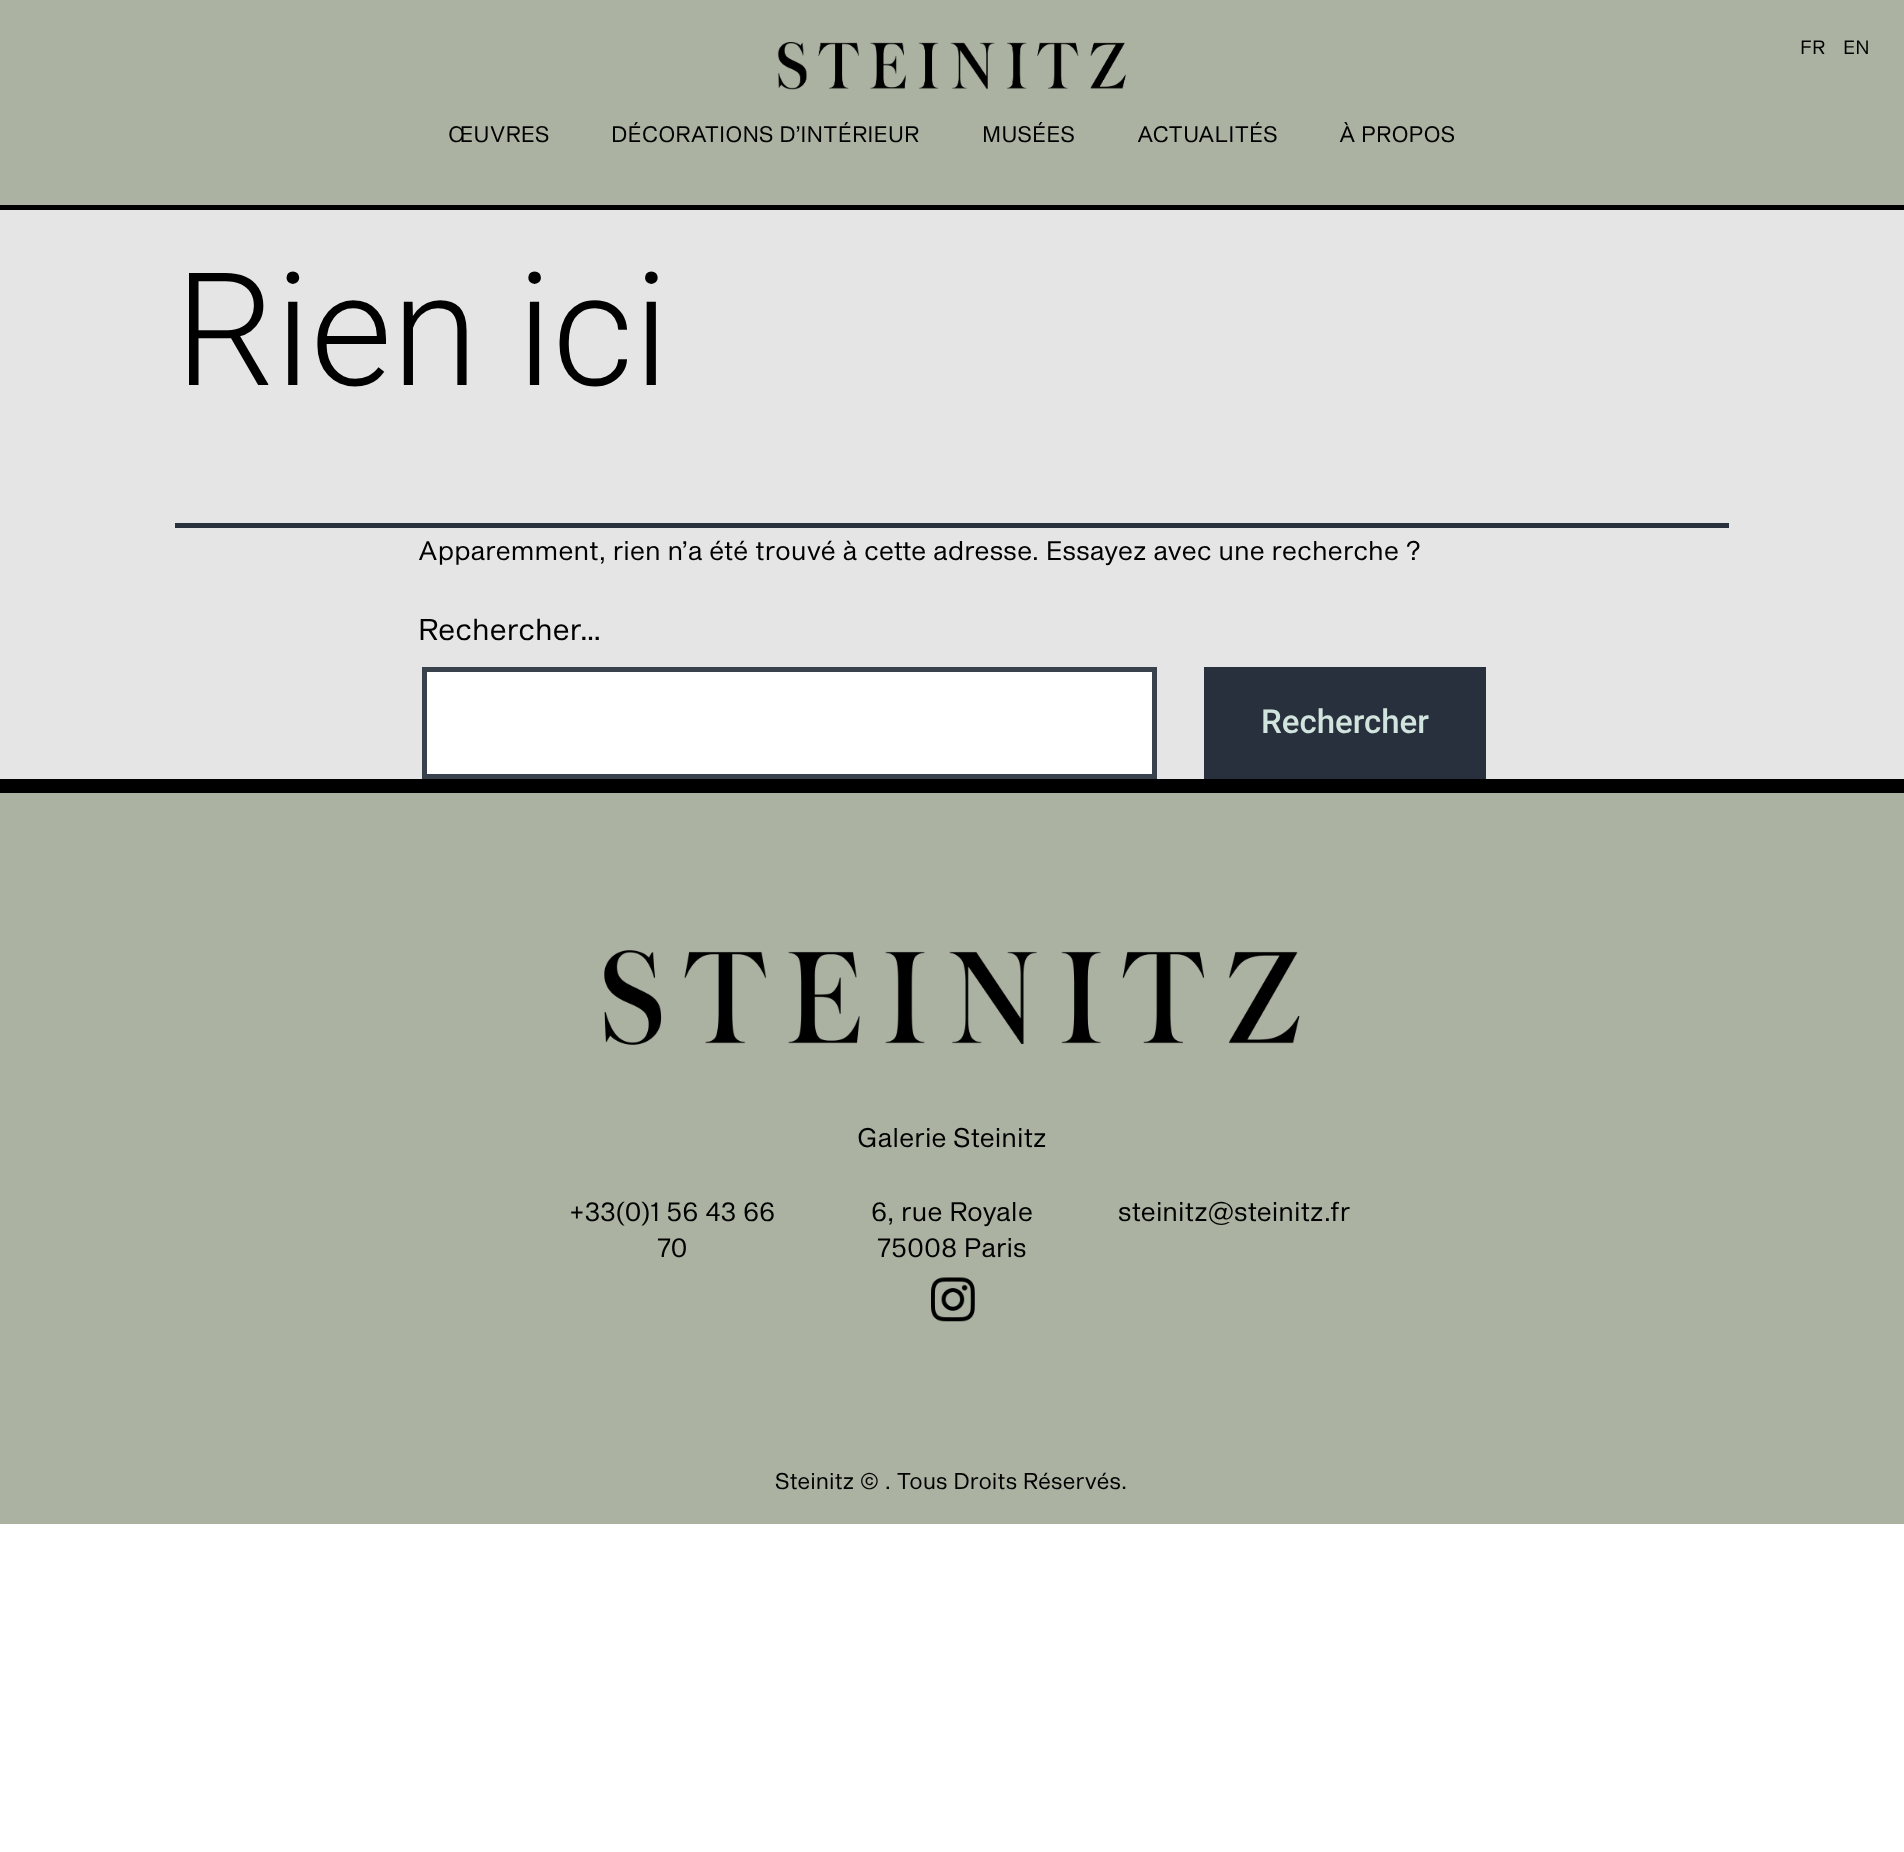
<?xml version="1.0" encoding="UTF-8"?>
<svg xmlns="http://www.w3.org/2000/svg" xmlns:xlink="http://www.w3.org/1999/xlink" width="1904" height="1852">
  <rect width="100%" height="100%" fill="#ffffff" />
  <rect y="210" width="1904" height="569" fill="#e5e5e5" />
  <rect width="1904" height="205" fill="#abb2a2" />
  <rect y="205" width="1904" height="5" fill="#000000" />
  <image x="777" y="42" width="349" height="48" xlink:href="image1.png" />
  <rect x="175" y="523" width="1554" height="5" fill="#28303d" />
  <rect x="424.5" y="669.5" width="730" height="107" fill="#ffffff" stroke="#39414d" stroke-width="5" />
  <rect x="1204" y="667" width="282" height="112" fill="#28303d" />
  <rect y="793" width="1904" height="731" fill="#abb2a2" />
  <rect y="779" width="1904" height="14" fill="#000000" />
  <image x="604" y="950" width="696" height="95" xlink:href="image2.png" />
  <image x="931" y="1277" width="44" height="45" xlink:href="image3.png" />
  <text x="1800" y="54" style="font-family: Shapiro; font-size: 19px; font-weight: 200; fill: #000000">FR</text>
  <text x="1843" y="54" style="font-family: Shapiro; font-size: 19px; font-weight: 200; fill: #000000">EN</text>
  <text x="448" y="142" style="font-family: Shapiro; font-size: 22px; font-weight: 200; fill: #000000">ŒUVRES</text>
  <text x="611" y="142" style="font-family: Shapiro; font-size: 22px; font-weight: 200; fill: #000000">DÉCORATIONS D’INTÉRIEUR</text>
  <text x="982" y="142" style="font-family: Shapiro; font-size: 22px; font-weight: 200; fill: #000000">MUSÉES</text>
  <text x="1137" y="142" style="font-family: Shapiro; font-size: 22px; font-weight: 200; fill: #000000">ACTUALITÉS</text>
  <text x="1339" y="142" style="font-family: Shapiro; font-size: 22px; font-weight: 200; fill: #000000">À PROPOS</text>
  <text x="175" y="385" style="font-family: Roboto; font-size: 157.5px; font-weight: 300; fill: #000000">Rien ici</text>
  <text x="418" y="560" style="font-family: Shapiro; font-size: 26.25px; font-weight: 200; fill: #000000">Apparemment, rien n’a été trouvé à cette adresse. Essayez avec une recherche ?</text>
  <text x="418" y="640" style="font-family: Shapiro; font-size: 29.5px; font-weight: 200; fill: #000000">Rechercher…</text>
  <text x="1261" y="733" style="font-family: Roboto; font-size: 33px; font-weight: 500; fill: #d1e4dd">Rechercher</text>
  <text x="857" y="1147" style="font-family: Shapiro; font-size: 26.25px; font-weight: 200; fill: #000000">Galerie Steinitz</text>
  <text x="569" y="1221" style="font-family: Shapiro; font-size: 26.25px; font-weight: 200; fill: #000000">+33(0)1 56 43 66</text>
  <text x="657" y="1257" style="font-family: Shapiro; font-size: 26.25px; font-weight: 200; fill: #000000">70</text>
  <text x="871" y="1221" style="font-family: Shapiro; font-size: 26.25px; font-weight: 200; fill: #000000">6, rue Royale</text>
  <text x="877" y="1257" style="font-family: Shapiro; font-size: 26.25px; font-weight: 200; fill: #000000">75008 Paris</text>
  <text x="1118" y="1221" style="font-family: Shapiro; font-size: 26.25px; font-weight: 200; fill: #000000">steinitz@steinitz.fr</text>
  <text x="775" y="1489" style="font-family: Shapiro; font-size: 22.25px; font-weight: 200; fill: #000000">Steinitz © . Tous Droits Réservés.</text>
</svg>
